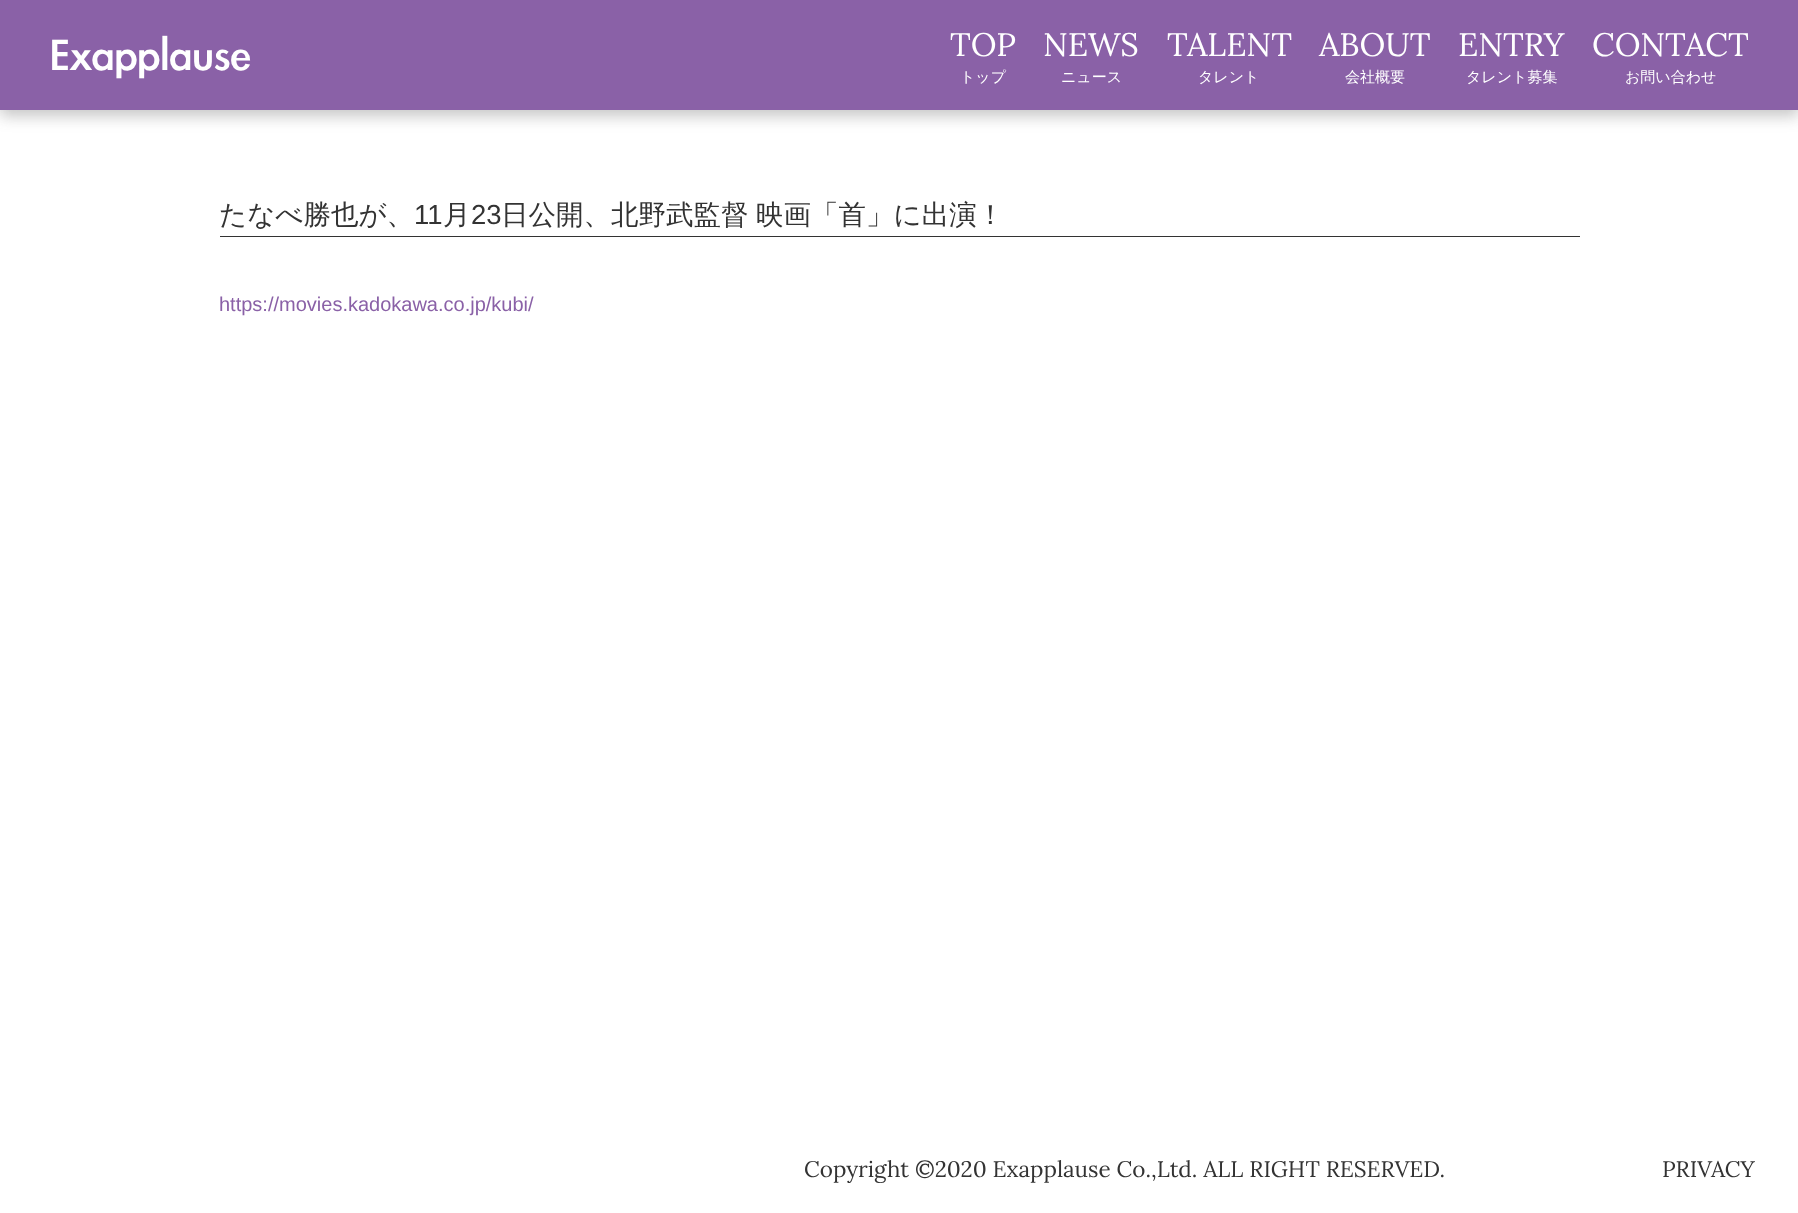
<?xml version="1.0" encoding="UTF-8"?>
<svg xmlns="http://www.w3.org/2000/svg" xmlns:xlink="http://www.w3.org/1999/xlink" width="1798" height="1213">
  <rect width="100%" height="100%" fill="#ffffff" />
  <rect y="6" width="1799" height="110" fill="#3e3e3e" fill-opacity="0.3" filter="blur(7.5px)" />
  <rect width="1798" height="110" fill="#8a61a7" />
  <rect x="220" y="236" width="1360" height="1" fill="#333333" />
  <text x="50" y="70" style="font-family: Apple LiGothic; font-size: 50px; fill: #ffffff">Exapplause</text>
  <text x="950" y="56" style="font-family: Lora; font-size: 32.5px; fill: #ffffff">TOP</text>
  <text x="960" y="82" style="font-family: WenQuanYi Zen Hei; font-size: 15px; font-weight: 500; fill: #ffffff">トップ</text>
  <text x="1043" y="56" style="font-family: Lora; font-size: 32.5px; fill: #ffffff">NEWS</text>
  <text x="1061" y="82" style="font-family: WenQuanYi Zen Hei; font-size: 15px; font-weight: 500; fill: #ffffff">ニュース</text>
  <text x="1167" y="56" style="font-family: Lora; font-size: 32.5px; fill: #ffffff">TALENT</text>
  <text x="1198" y="82" style="font-family: WenQuanYi Zen Hei; font-size: 15px; font-weight: 500; fill: #ffffff">タレント</text>
  <text x="1319" y="56" style="font-family: Lora; font-size: 32.5px; fill: #ffffff">ABOUT</text>
  <text x="1345" y="82" style="font-family: WenQuanYi Zen Hei; font-size: 15px; font-weight: 500; fill: #ffffff">会社概要</text>
  <text x="1458" y="56" style="font-family: Lora; font-size: 32.5px; fill: #ffffff">ENTRY</text>
  <text x="1466" y="82" style="font-family: WenQuanYi Zen Hei; font-size: 15px; font-weight: 500; fill: #ffffff">タレント募集</text>
  <text x="1592" y="56" style="font-family: Lora; font-size: 32.5px; fill: #ffffff">CONTACT</text>
  <text x="1625" y="82" style="font-family: WenQuanYi Zen Hei; font-size: 15px; font-weight: 500; fill: #ffffff">お問い合わせ</text>
  <text x="219" y="224" style="font-family: WenQuanYi Zen Hei; font-size: 27.5px; font-weight: 500; fill: #333333">たなべ勝也が、</text>
  <text x="414" y="224" style="font-family: Liberation Sans; font-size: 27.5px; fill: #333333">11</text>
  <text x="443" y="224" style="font-family: WenQuanYi Zen Hei; font-size: 27.5px; font-weight: 500; fill: #333333">月</text>
  <text x="471" y="224" style="font-family: Liberation Sans; font-size: 27.5px; fill: #333333">23</text>
  <text x="501" y="224" style="font-family: WenQuanYi Zen Hei; font-size: 27.5px; font-weight: 500; fill: #333333">日公開、北野武監督</text>
  <text x="756" y="224" style="font-family: WenQuanYi Zen Hei; font-size: 27.5px; font-weight: 500; fill: #333333">映画「首」に出演！</text>
  <text x="219" y="311" style="font-family: Liberation Sans; font-size: 20px; fill: #8a61a7">https://movies.kadokawa.co.jp/kubi/</text>
  <text x="804" y="1177" style="font-family: Lora; font-size: 22.5px; fill: #333333">Copyright ©2020 Exapplause Co.,Ltd. ALL RIGHT RESERVED.</text>
  <text x="1662" y="1177" style="font-family: Lora; font-size: 22.5px; fill: #333333">PRIVACY</text>
</svg>
